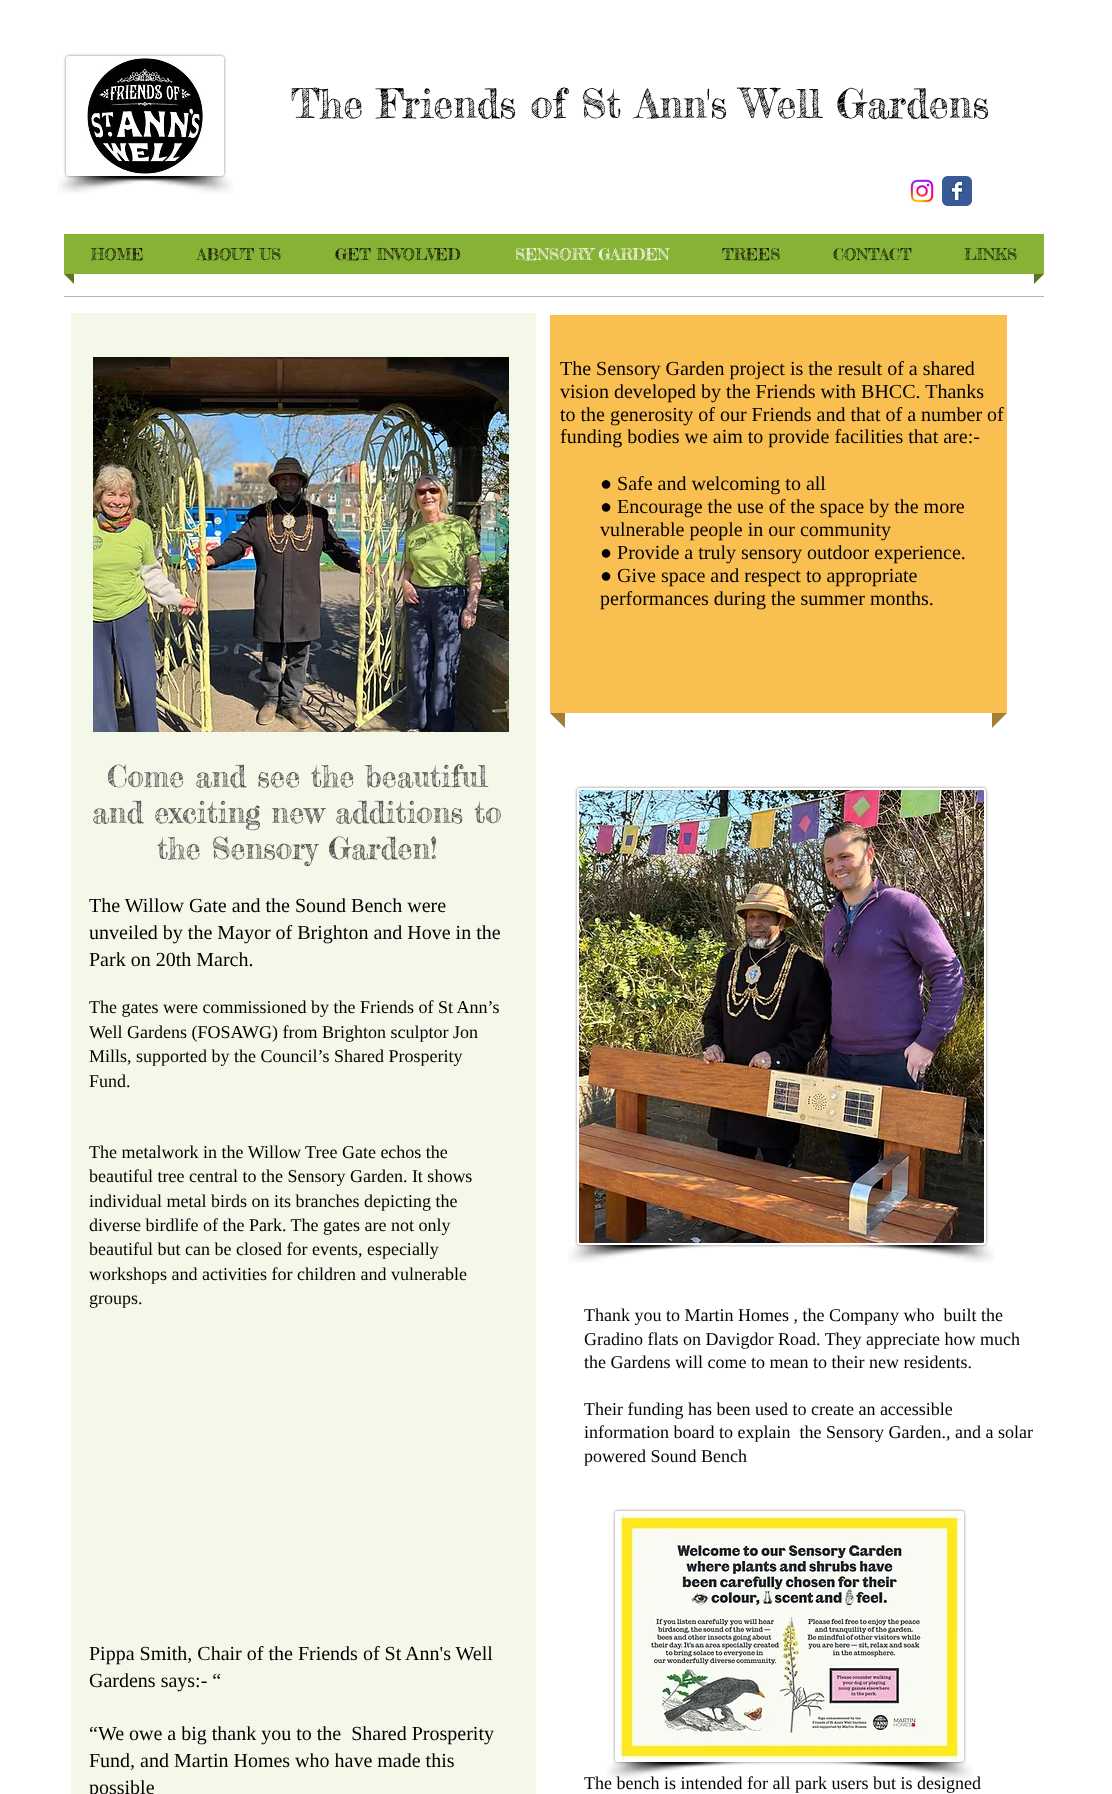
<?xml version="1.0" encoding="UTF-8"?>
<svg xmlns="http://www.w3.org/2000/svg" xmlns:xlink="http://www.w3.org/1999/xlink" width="1112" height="1794">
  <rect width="100%" height="100%" fill="#ffffff" />
  <rect x="66" y="56" width="158" height="120" rx="3" fill="#000000" fill-opacity="0.5" filter="blur(1.5px)" />
  <rect x="67" y="57" width="156" height="118" rx="2" fill="#ffffff" stroke="#ffffff" stroke-width="2" />
  <image x="87" y="58" width="116" height="116" xlink:href="image1.png" />
  <image x="57" y="176" width="154" height="18" xlink:href="image2.png" />
  <image x="99" y="176" width="134" height="18" xlink:href="image3.png" />
  <image x="910" y="179" width="24" height="24" xlink:href="image4.png" />
  <image x="942" y="176" width="30" height="30" xlink:href="image5.png" />
  <rect x="64" y="234" width="980" height="40" fill="#88b235" />
  <path d="M 64 274 h 10 v 10 z" fill="#5b7623" />
  <path d="M 1034 274 h 10 l -10 10 z" fill="#5b7623" />
  <rect x="64" y="296" width="980" height="1" fill="#b3b3b3" />
  <rect x="550" y="315" width="457" height="398" fill="#f9bf51" />
  <path d="M 550 713 h 15 v 15 z" fill="#a47e36" />
  <path d="M 992 713 h 15 l -15 15 z" fill="#a47e36" />
  <rect x="71" y="313" width="465" height="1481" fill="#f3f8e9" />
  <image x="93" y="357" width="416" height="375" xlink:href="image6.png" />
  <rect x="577" y="788" width="409" height="457" rx="3" fill="#000000" fill-opacity="0.5" filter="blur(1.5px)" />
  <rect x="578" y="789" width="407" height="455" rx="2" fill="#ffffff" stroke="#ffffff" stroke-width="2" />
  <image x="579" y="790" width="405" height="453" xlink:href="image7.png" />
  <image x="568" y="1245" width="154" height="18" xlink:href="image2.png" />
  <image x="841" y="1245" width="154" height="18" xlink:href="image8.png" />
  <rect x="615" y="1511" width="349" height="251" rx="3" fill="#000000" fill-opacity="0.5" filter="blur(1.5px)" />
  <rect x="616" y="1512" width="347" height="249" rx="2" fill="#ffffff" stroke="#ffffff" stroke-width="2" />
  <image x="617" y="1513" width="345" height="247" xlink:href="image9.png" />
  <text x="291" y="118" style="font-family: Fredericka the Great; font-size: 40px; fill: #000000">The Friends of St Ann's Well Gardens</text>
  <text x="91" y="260" style="font-family: Fredericka the Great; font-size: 16px; fill: #000000">HOME</text>
  <text x="197" y="260" style="font-family: Fredericka the Great; font-size: 16px; fill: #000000">ABOUT US</text>
  <text x="335" y="260" style="font-family: Fredericka the Great; font-size: 16px; fill: #000000">GET INVOLVED</text>
  <text x="515" y="260" style="font-family: Fredericka the Great; font-size: 16px; fill: #ffffff">SENSORY GARDEN</text>
  <text x="722" y="260" style="font-family: Fredericka the Great; font-size: 16px; fill: #000000">TREES</text>
  <text x="833" y="260" style="font-family: Fredericka the Great; font-size: 16px; fill: #000000">CONTACT</text>
  <text x="964" y="260" style="font-family: Fredericka the Great; font-size: 16px; fill: #000000">LINKS</text>
  <text x="560" y="375" style="font-family: Liberation Serif; font-size: 20px; fill: #000000">The Sensory Garden project is the result of a shared</text>
  <text x="560" y="398" style="font-family: Liberation Serif; font-size: 20px; fill: #000000">vision developed by the Friends with BHCC. Thanks</text>
  <text x="560" y="421" style="font-family: Liberation Serif; font-size: 20px; fill: #000000">to the generosity of our Friends and that of a number of</text>
  <text x="560" y="443" style="font-family: Liberation Serif; font-size: 20px; fill: #000000">funding bodies we aim to provide facilities that are:-</text>
  <text x="600" y="490" style="font-family: Liberation Serif; font-size: 20px; fill: #000000">● Safe and welcoming to all</text>
  <text x="600" y="513" style="font-family: Liberation Serif; font-size: 20px; fill: #000000">● Encourage the use of the space by the more</text>
  <text x="600" y="536" style="font-family: Liberation Serif; font-size: 20px; fill: #000000">vulnerable people in our community</text>
  <text x="600" y="559" style="font-family: Liberation Serif; font-size: 20px; fill: #000000">● Provide a truly sensory outdoor experience.</text>
  <text x="600" y="582" style="font-family: Liberation Serif; font-size: 20px; fill: #000000">● Give space and respect to appropriate</text>
  <text x="600" y="605" style="font-family: Liberation Serif; font-size: 20px; fill: #000000">performances during the summer months.</text>
  <text x="107" y="787" style="font-family: Fredericka the Great; font-size: 30px; fill: #4a4a4a">Come and see the beautiful</text>
  <text x="92" y="823" style="font-family: Fredericka the Great; font-size: 30px; fill: #4a4a4a">and exciting new additions to</text>
  <text x="157" y="859" style="font-family: Fredericka the Great; font-size: 30px; fill: #4a4a4a">the Sensory Garden!</text>
  <text x="89" y="912" style="font-family: Liberation Serif; font-size: 20px; fill: #000000">The Willow Gate and the Sound Bench were</text>
  <text x="89" y="939" style="font-family: Liberation Serif; font-size: 20px; fill: #000000">unveiled by the Mayor of Brighton and Hove in the</text>
  <text x="89" y="966" style="font-family: Liberation Serif; font-size: 20px; fill: #000000">Park on 20th March.</text>
  <text x="89" y="1013" style="font-family: Liberation Serif; font-size: 18px; fill: #000000">The gates were commissioned by the Friends of St Ann’s</text>
  <text x="89" y="1038" style="font-family: Liberation Serif; font-size: 18px; fill: #000000">Well Gardens (FOSAWG) from Brighton sculptor Jon</text>
  <text x="89" y="1062" style="font-family: Liberation Serif; font-size: 18px; fill: #000000">Mills, supported by the Council’s Shared Prosperity</text>
  <text x="89" y="1087" style="font-family: Liberation Serif; font-size: 18px; fill: #000000">Fund.</text>
  <text x="89" y="1158" style="font-family: Liberation Serif; font-size: 18px; fill: #000000">The metalwork in the Willow Tree Gate echos the</text>
  <text x="89" y="1182" style="font-family: Liberation Serif; font-size: 18px; fill: #000000">beautiful tree central to the Sensory Garden. It shows</text>
  <text x="89" y="1207" style="font-family: Liberation Serif; font-size: 18px; fill: #000000">individual metal birds on its branches depicting the</text>
  <text x="89" y="1231" style="font-family: Liberation Serif; font-size: 18px; fill: #000000">diverse birdlife of the Park. The gates are not only</text>
  <text x="89" y="1255" style="font-family: Liberation Serif; font-size: 18px; fill: #000000">beautiful but can be closed for events, especially</text>
  <text x="89" y="1280" style="font-family: Liberation Serif; font-size: 18px; fill: #000000">workshops and activities for children and vulnerable</text>
  <text x="89" y="1304" style="font-family: Liberation Serif; font-size: 18px; fill: #000000">groups.</text>
  <text x="89" y="1660" style="font-family: Liberation Serif; font-size: 20px; fill: #000000">Pippa Smith, Chair of the Friends of St Ann's Well</text>
  <text x="89" y="1687" style="font-family: Liberation Serif; font-size: 20px; fill: #000000">Gardens says:- “</text>
  <text x="89" y="1740" style="font-family: Liberation Serif; font-size: 20px; fill: #000000" xml:space="preserve">“We owe a big thank you to the  Shared Prosperity</text>
  <text x="89" y="1767" style="font-family: Liberation Serif; font-size: 20px; fill: #000000">Fund, and Martin Homes who have made this</text>
  <text x="89" y="1794" style="font-family: Liberation Serif; font-size: 20px; fill: #000000">possible</text>
  <text x="584" y="1321" style="font-family: Liberation Serif; font-size: 18px; fill: #000000" xml:space="preserve">Thank you to Martin Homes , the Company who  built the</text>
  <text x="584" y="1345" style="font-family: Liberation Serif; font-size: 18px; fill: #000000">Gradino flats on Davigdor Road. They appreciate how much</text>
  <text x="584" y="1368" style="font-family: Liberation Serif; font-size: 18px; fill: #000000">the Gardens will come to mean to their new residents.</text>
  <text x="584" y="1415" style="font-family: Liberation Serif; font-size: 18px; fill: #000000">Their funding has been used to create an accessible</text>
  <text x="584" y="1438" style="font-family: Liberation Serif; font-size: 18px; fill: #000000" xml:space="preserve">information board to explain  the Sensory Garden., and a solar</text>
  <text x="584" y="1462" style="font-family: Liberation Serif; font-size: 18px; fill: #000000">powered Sound Bench</text>
  <text x="584" y="1789" style="font-family: Liberation Serif; font-size: 18px; fill: #000000">The bench is intended for all park users but is designed</text>
  <image x="606" y="1762" width="154" height="18" xlink:href="image10.png" />
  <image x="819" y="1762" width="154" height="18" xlink:href="image11.png" />
</svg>
